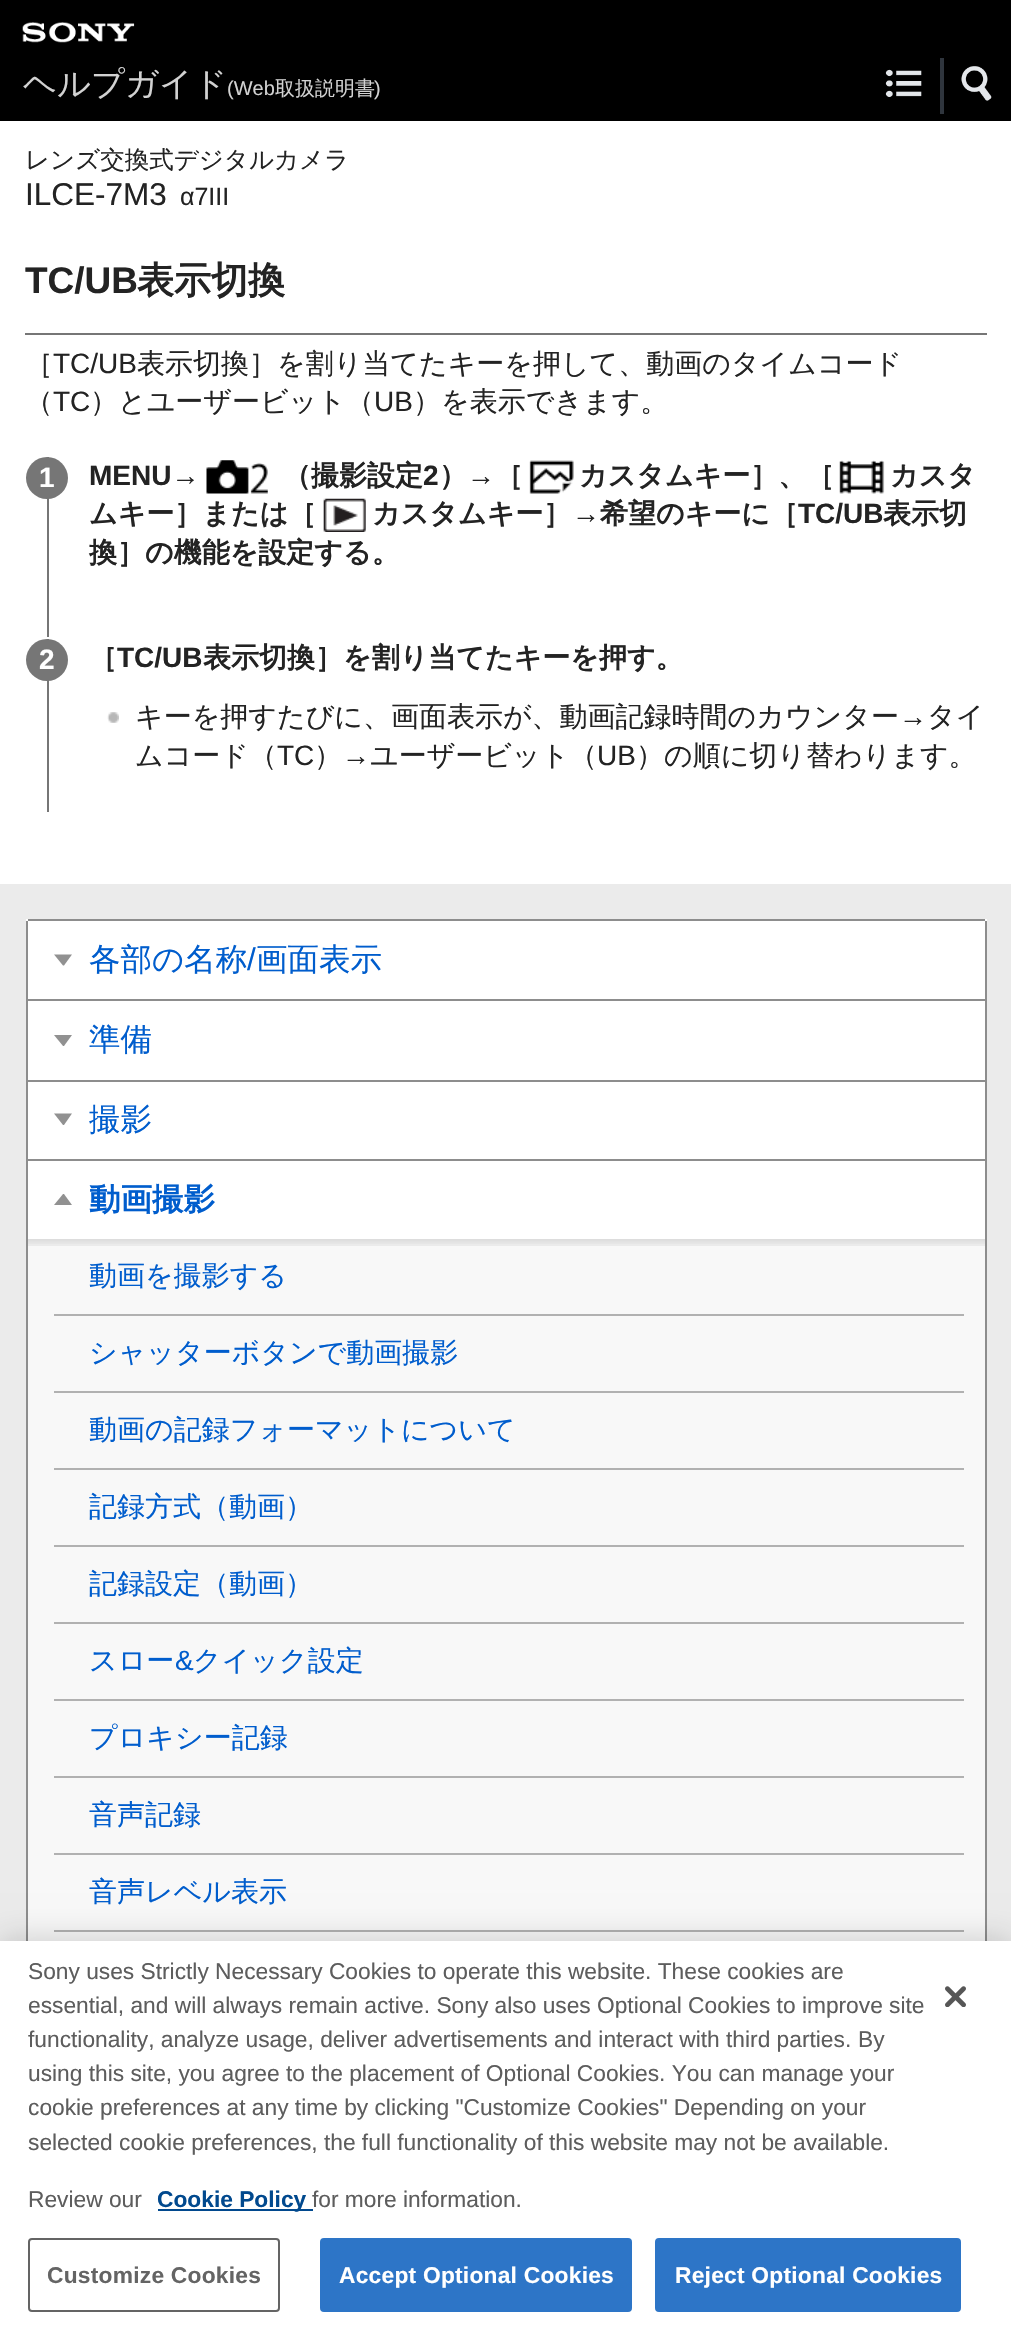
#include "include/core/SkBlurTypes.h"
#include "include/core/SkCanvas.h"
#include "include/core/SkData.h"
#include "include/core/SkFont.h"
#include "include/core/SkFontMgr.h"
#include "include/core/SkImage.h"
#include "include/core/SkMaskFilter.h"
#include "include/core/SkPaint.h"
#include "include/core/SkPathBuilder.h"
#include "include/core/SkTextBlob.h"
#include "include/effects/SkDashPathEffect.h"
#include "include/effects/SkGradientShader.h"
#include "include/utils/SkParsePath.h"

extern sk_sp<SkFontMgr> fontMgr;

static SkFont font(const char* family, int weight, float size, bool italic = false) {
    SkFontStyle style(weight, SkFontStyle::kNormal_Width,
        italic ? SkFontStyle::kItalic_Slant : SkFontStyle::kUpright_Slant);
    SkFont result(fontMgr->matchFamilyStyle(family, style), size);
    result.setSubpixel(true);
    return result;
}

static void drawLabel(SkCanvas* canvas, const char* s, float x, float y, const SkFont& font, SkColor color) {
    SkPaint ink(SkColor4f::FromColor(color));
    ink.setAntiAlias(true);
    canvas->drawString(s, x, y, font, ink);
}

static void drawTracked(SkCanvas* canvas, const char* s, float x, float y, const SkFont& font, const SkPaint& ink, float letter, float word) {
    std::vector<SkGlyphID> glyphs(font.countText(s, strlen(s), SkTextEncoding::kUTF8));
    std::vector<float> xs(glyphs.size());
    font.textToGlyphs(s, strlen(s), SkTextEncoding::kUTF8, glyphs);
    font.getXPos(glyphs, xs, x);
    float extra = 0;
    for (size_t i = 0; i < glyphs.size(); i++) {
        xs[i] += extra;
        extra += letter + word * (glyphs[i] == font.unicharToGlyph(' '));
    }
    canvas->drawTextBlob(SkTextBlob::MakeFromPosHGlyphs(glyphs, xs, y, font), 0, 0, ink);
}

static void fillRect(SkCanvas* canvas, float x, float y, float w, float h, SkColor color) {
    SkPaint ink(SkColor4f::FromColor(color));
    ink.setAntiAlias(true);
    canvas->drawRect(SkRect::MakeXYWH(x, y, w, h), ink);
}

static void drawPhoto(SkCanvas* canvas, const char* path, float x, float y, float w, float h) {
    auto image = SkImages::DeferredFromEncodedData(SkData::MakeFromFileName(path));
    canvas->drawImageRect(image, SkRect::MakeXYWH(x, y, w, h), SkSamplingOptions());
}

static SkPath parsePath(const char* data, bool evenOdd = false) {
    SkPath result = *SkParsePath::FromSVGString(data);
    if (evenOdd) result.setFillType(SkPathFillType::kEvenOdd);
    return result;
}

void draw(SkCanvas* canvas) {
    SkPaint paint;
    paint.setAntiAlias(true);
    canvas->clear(0xFFFFFFFF);
    fillRect(canvas, 0, 0, 1011, 121, 0xFF000000);
    drawPhoto(canvas, "assets/img1.png", 22, 22, 113, 21);
    SkFont font1 = font("WenQuanYi Zen Hei", 500, 33.25f);
    drawLabel(canvas, "ヘルプガイド", 23, 95, font1, 0xFFD2D2D2);
    SkFont font2 = font("Liberation Sans", 400, 20);
    drawLabel(canvas, "(Web", 227, 95, font2, 0xFFD2D2D2);
    SkFont font3 = font("WenQuanYi Zen Hei", 500, 20);
    drawLabel(canvas, "取扱説明書", 275, 95, font3, 0xFFD2D2D2);
    drawLabel(canvas, ")", 374, 95, font2, 0xFFD2D2D2);
    SkFont font4 = font("WenQuanYi Zen Hei", 500, 24.5f);
    drawLabel(canvas, "レンズ交換式デジタルカメラ", 25, 168, font4, 0xFF232323);
    SkFont font5 = font("Liberation Sans", 400, 31.5f);
    drawLabel(canvas, "ILCE-7M3", 25, 205, font5, 0xFF232323);
    SkFont font6 = font("Liberation Sans", 400, 25);
    drawLabel(canvas, "α7III", 180, 205, font6, 0xFF232323);
    fillRect(canvas, 940, 58, 4, 56, 0xFF2F353D);
    drawPhoto(canvas, "assets/img2.png", 885, 69, 37, 28);
    drawPhoto(canvas, "assets/img3.png", 961, 66, 31, 35);
    fillRect(canvas, 25, 333, 962, 2, 0xFF767676);
    SkFont font7 = font("Liberation Sans", 700, 37);
    drawLabel(canvas, "TC/UB", 25, 293, font7, 0xFF232323);
    SkFont font8 = font("WenQuanYi Zen Hei", 700, 37);
    drawLabel(canvas, "表示切換", 137, 293, font8, 0xFF232323);
    SkFont font9 = font("WenQuanYi Zen Hei", 500, 28);
    drawLabel(canvas, "［", 25, 373, font9, 0xFF232323);
    SkFont font10 = font("Liberation Sans", 400, 28);
    drawLabel(canvas, "TC/UB", 53, 373, font10, 0xFF232323);
    drawLabel(canvas, "表示切換］を割り当てたキーを押して、動画のタイムコード", 137, 373, font9, 0xFF232323);
    drawLabel(canvas, "（", 25, 411, font9, 0xFF232323);
    drawLabel(canvas, "TC", 53, 411, font10, 0xFF232323);
    drawLabel(canvas, "）とユーザービット（", 90, 411, font9, 0xFF232323);
    drawLabel(canvas, "UB", 374, 411, font10, 0xFF232323);
    drawLabel(canvas, "）を表示できます。", 413, 411, font9, 0xFF232323);
    fillRect(canvas, 47, 457, 2, 180, 0xFF767676);
    paint.setColor(0xFF767676);
    canvas->drawCircle(47, 478, 21, paint);
    SkFont font11 = font("Liberation Sans", 700, 28);
    drawLabel(canvas, "1", 39, 487, font11, 0xFFFFFFFF);
    drawLabel(canvas, "MENU→", 89, 485, font11, 0xFF232323);
    drawPhoto(canvas, "assets/img4.png", 206, 460, 62, 34);
    SkFont font12 = font("WenQuanYi Zen Hei", 700, 28);
    drawLabel(canvas, "（撮影設定", 283, 485, font12, 0xFF232323);
    drawLabel(canvas, "2", 423, 485, font11, 0xFF232323);
    drawLabel(canvas, "）", 439, 485, font12, 0xFF232323);
    drawLabel(canvas, "→", 467, 485, font11, 0xFF232323);
    drawLabel(canvas, "［", 495, 485, font12, 0xFF232323);
    drawPhoto(canvas, "assets/img5.png", 529, 460, 45, 34);
    drawLabel(canvas, "カスタムキー］、［", 579, 485, font12, 0xFF232323);
    drawPhoto(canvas, "assets/img6.png", 839, 460, 46, 34);
    drawLabel(canvas, "カスタ", 890, 485, font12, 0xFF232323);
    drawLabel(canvas, "ムキー］または［", 89, 523, font12, 0xFF232323);
    drawPhoto(canvas, "assets/img7.png", 323, 498, 43, 34);
    drawLabel(canvas, "カスタムキー］", 372, 523, font12, 0xFF232323);
    drawLabel(canvas, "→", 572, 523, font11, 0xFF232323);
    drawLabel(canvas, "希望のキーに［", 600, 523, font12, 0xFF232323);
    drawLabel(canvas, "TC/UB", 798, 523, font11, 0xFF232323);
    drawLabel(canvas, "表示切", 883, 523, font12, 0xFF232323);
    drawLabel(canvas, "換］の機能を設定する。", 89, 562, font12, 0xFF232323);
    fillRect(canvas, 47, 639, 2, 173, 0xFF767676);
    canvas->drawCircle(47, 660, 21, paint);
    drawLabel(canvas, "2", 39, 669, font11, 0xFFFFFFFF);
    drawLabel(canvas, "［", 89, 667, font12, 0xFF232323);
    drawLabel(canvas, "TC/UB", 117, 667, font11, 0xFF232323);
    drawLabel(canvas, "表示切換］を割り当てたキーを押す。", 203, 667, font12, 0xFF232323);
    drawPhoto(canvas, "assets/img8.png", 107, 712, 12, 11);
    drawLabel(canvas, "キーを押すたびに、画面表示が、動画記録時間のカウンター", 135, 726, font9, 0xFF232323);
    drawLabel(canvas, "→", 899, 726, font10, 0xFF232323);
    drawLabel(canvas, "タイ", 927, 726, font9, 0xFF232323);
    drawLabel(canvas, "ムコード（", 135, 765, font9, 0xFF232323);
    drawLabel(canvas, "TC", 277, 765, font10, 0xFF232323);
    drawLabel(canvas, "）", 314, 765, font9, 0xFF232323);
    drawLabel(canvas, "→", 342, 765, font10, 0xFF232323);
    drawLabel(canvas, "ユーザービット（", 370, 765, font9, 0xFF232323);
    drawLabel(canvas, "UB", 597, 765, font10, 0xFF232323);
    drawLabel(canvas, "）の順に切り替わります。", 636, 765, font9, 0xFF232323);
    fillRect(canvas, 0, 884, 1011, 1057, 0xFFEBEBEB);
    fillRect(canvas, 26, 919, 961, 320, 0xFFFFFFFF);
    fillRect(canvas, 28, 919, 957, 2, 0xFF8D8D8D);
    fillRect(canvas, 985, 921, 2, 78, 0xFF8D8D8D);
    fillRect(canvas, 26, 921, 2, 78, 0xFF8D8D8D);
    paint.setColor(0xFF919191);
    canvas->drawPath(parsePath("M54 954.5L63 965.5H64L72 954.5Z"), paint);
    SkFont font13 = font("WenQuanYi Zen Hei", 500, 31.5f);
    drawLabel(canvas, "各部の名称", 89, 970, font13, 0xFF005DCD);
    drawLabel(canvas, "/", 247, 970, font5, 0xFF005DCD);
    drawLabel(canvas, "画面表示", 256, 970, font13, 0xFF005DCD);
    fillRect(canvas, 26, 999, 961, 2, 0xFF8D8D8D);
    fillRect(canvas, 985, 999, 2, 81, 0xFF8D8D8D);
    fillRect(canvas, 26, 999, 2, 81, 0xFF8D8D8D);
    canvas->drawPath(parsePath("M54 1035L63 1046H64L72 1035Z"), paint);
    drawLabel(canvas, "準備", 89, 1050, font13, 0xFF005DCD);
    fillRect(canvas, 26, 1080, 961, 2, 0xFF8D8D8D);
    fillRect(canvas, 985, 1080, 2, 79, 0xFF8D8D8D);
    fillRect(canvas, 26, 1080, 2, 79, 0xFF8D8D8D);
    canvas->drawPath(parsePath("M54 1113.5L63 1125H64L72 1113.5Z"), paint);
    drawLabel(canvas, "撮影", 89, 1130, font13, 0xFF005DCD);
    fillRect(canvas, 26, 1159, 961, 2, 0xFF8D8D8D);
    fillRect(canvas, 985, 1159, 2, 782, 0xFF8D8D8D);
    fillRect(canvas, 26, 1159, 2, 782, 0xFF8D8D8D);
    canvas->drawPath(parsePath("M54 1205L63 1194H64L72 1205Z"), paint);
    SkFont font14 = font("WenQuanYi Zen Hei", 700, 31.5f);
    drawLabel(canvas, "動画撮影", 89, 1210, font14, 0xFF005DCD);
    fillRect(canvas, 28, 1246, 957, 695, 0xFFF8F8F8);
    {
        const SkColor colors[] = {0xFFDCDCDC, 0xFFECECEC};
        const float stops[] = {0, 1};
        const SkPoint ends[] = {{507, 1239}, {507, 1246}};
        paint.setShader(SkGradientShader::MakeLinear(ends, colors, stops, 2, SkTileMode::kClamp));
        paint.setAlpha(255);
    }
    canvas->drawRect(SkRect::MakeXYWH(28, 1239, 957, 5), paint);
    fillRect(canvas, 54, 1314, 910, 2, 0xFFB1B1B1);
    drawLabel(canvas, "動画を撮影する", 89, 1285, font9, 0xFF005DCD);
    fillRect(canvas, 54, 1391, 910, 2, 0xFFB1B1B1);
    drawLabel(canvas, "シャッターボタンで動画撮影", 89, 1362, font9, 0xFF005DCD);
    fillRect(canvas, 54, 1468, 910, 2, 0xFFB1B1B1);
    drawLabel(canvas, "動画の記録フォーマットについて", 89, 1439, font9, 0xFF005DCD);
    fillRect(canvas, 54, 1545, 910, 2, 0xFFB1B1B1);
    drawLabel(canvas, "記録方式（動画）", 89, 1516, font9, 0xFF005DCD);
    fillRect(canvas, 54, 1622, 910, 2, 0xFFB1B1B1);
    drawLabel(canvas, "記録設定（動画）", 89, 1593, font9, 0xFF005DCD);
    fillRect(canvas, 54, 1699, 910, 2, 0xFFB1B1B1);
    drawLabel(canvas, "スロー", 89, 1670, font9, 0xFF005DCD);
    drawLabel(canvas, "&", 175, 1670, font10, 0xFF005DCD);
    drawLabel(canvas, "クイック設定", 193, 1670, font9, 0xFF005DCD);
    fillRect(canvas, 54, 1776, 910, 2, 0xFFB1B1B1);
    drawLabel(canvas, "プロキシー記録", 89, 1747, font9, 0xFF005DCD);
    fillRect(canvas, 54, 1853, 910, 2, 0xFFB1B1B1);
    drawLabel(canvas, "音声記録", 89, 1824, font9, 0xFF005DCD);
    fillRect(canvas, 54, 1930, 910, 2, 0xFFB1B1B1);
    drawLabel(canvas, "音声レベル表示", 89, 1901, font9, 0xFF005DCD);
    paint.setShader(nullptr);
    paint.setColor(0x33000000);
    paint.setMaskFilter(SkMaskFilter::MakeBlur(kNormal_SkBlurStyle, 16));
    canvas->drawRect(SkRect::MakeXYWH(0, 1941, 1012, 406), paint);
    paint.setMaskFilter(nullptr);
    fillRect(canvas, 0, 1941, 1011, 405, 0xFFFFFFFF);
    SkFont font15 = font("Liberation Sans", 400, 22.75f);
    drawLabel(canvas, "Sony uses Strictly Necessary Cookies to operate this website. These cookies are", 28, 1979, font15, 0xFF5D5D5D);
    drawLabel(canvas, "essential, and will always remain active. Sony also uses Optional Cookies to improve site", 28, 2013, font15, 0xFF5D5D5D);
    drawLabel(canvas, "functionality, analyze usage, deliver advertisements and interact with third parties.", 28, 2047, font15, 0xFF5D5D5D);
    drawLabel(canvas, "By", 858, 2047, font15, 0xFF5D5D5D);
    drawLabel(canvas, "using this site, you agree to the placement of Optional Cookies. You can manage your", 28, 2081, font15, 0xFF5D5D5D);
    drawLabel(canvas, "cookie preferences at any time by clicking \"Customize Cookies\" Depending on your", 28, 2115, font15, 0xFF5D5D5D);
    drawLabel(canvas, "selected cookie preferences, the full functionality of this website may not be available.", 28, 2150, font15, 0xFF5D5D5D);
    drawLabel(canvas, "Review our", 28, 2207, font15, 0xFF5D5D5D);
    fillRect(canvas, 158, 2209, 155, 2, 0xFF01498E);
    SkFont font16 = font("Liberation Sans", 700, 22.75f);
    drawLabel(canvas, "Cookie Policy", 157, 2207, font16, 0xFF01498E);
    drawLabel(canvas, "for more information.", 312, 2207, font15, 0xFF5D5D5D);
    paint.setStroke(true);
    paint.setStrokeWidth(2);
    paint.setColor(0xFF646464);
    canvas->drawRoundRect(SkRect::MakeXYWH(29, 2239, 250, 72), 3, 3, paint);
    paint.setStroke(false);
    drawTracked(canvas, "Customize Cookies", 47, 2283, font16, paint, 0.25f, 0);
    paint.setColor(0xFF2D75C7);
    canvas->drawRoundRect(SkRect::MakeXYWH(321, 2239, 310, 72), 3, 3, paint);
    paint.setStroke(true);
    canvas->drawRoundRect(SkRect::MakeXYWH(321, 2239, 310, 72), 3, 3, paint);
    paint.setStroke(false);
    paint.setColor(0xFFFFFFFF);
    drawTracked(canvas, "Accept Optional Cookies", 339, 2283, font16, paint, 0.25f, 0);
    paint.setColor(0xFF2D75C7);
    canvas->drawRoundRect(SkRect::MakeXYWH(656, 2239, 304, 72), 3, 3, paint);
    paint.setStroke(true);
    canvas->drawRoundRect(SkRect::MakeXYWH(656, 2239, 304, 72), 3, 3, paint);
    paint.setStroke(false);
    paint.setColor(0xFFFFFFFF);
    drawTracked(canvas, "Reject Optional Cookies", 675, 2283, font16, paint, 0.25f, 0);
    drawPhoto(canvas, "assets/img9.png", 945, 1986, 21, 21);
}
